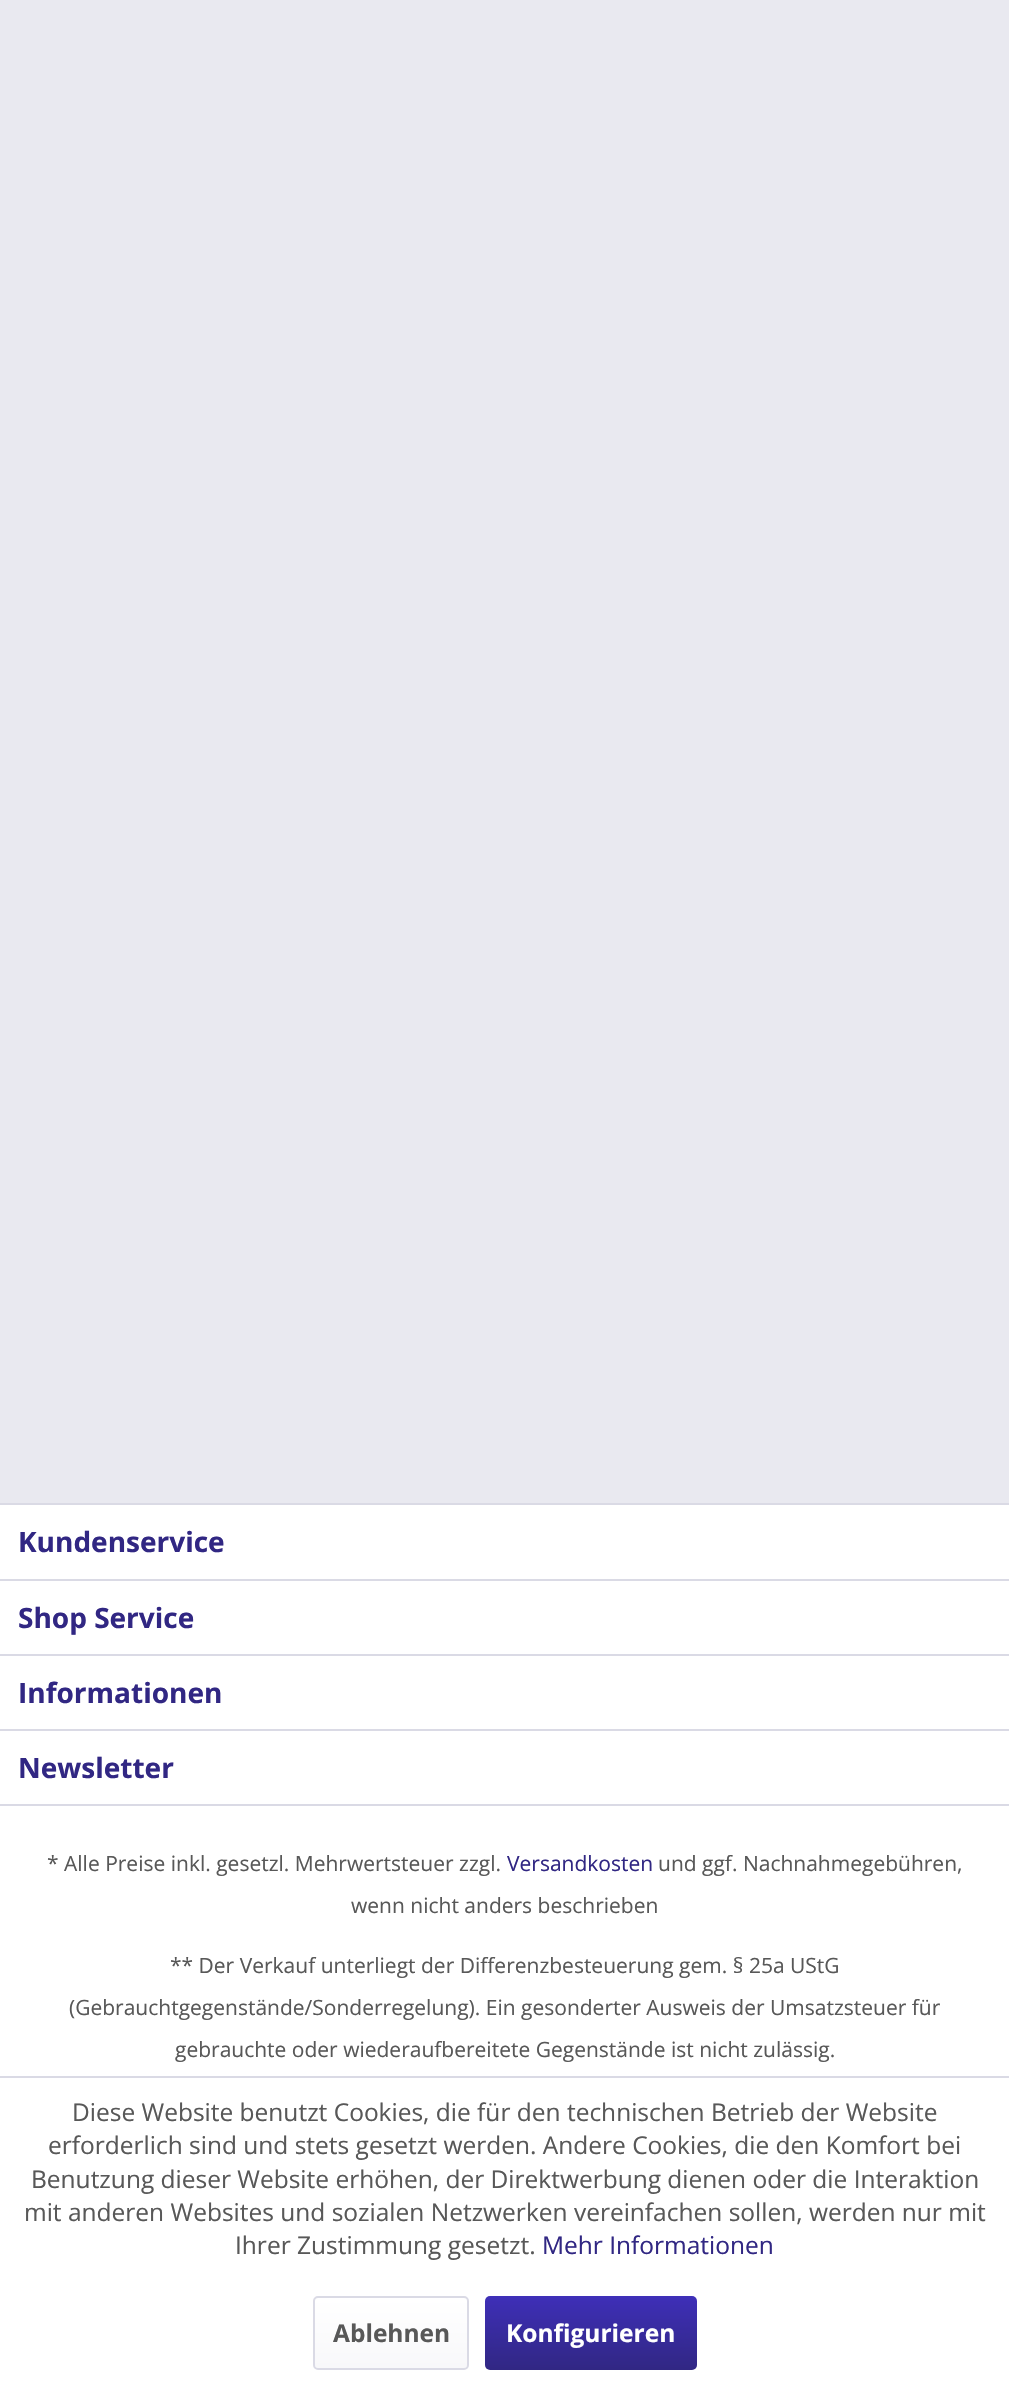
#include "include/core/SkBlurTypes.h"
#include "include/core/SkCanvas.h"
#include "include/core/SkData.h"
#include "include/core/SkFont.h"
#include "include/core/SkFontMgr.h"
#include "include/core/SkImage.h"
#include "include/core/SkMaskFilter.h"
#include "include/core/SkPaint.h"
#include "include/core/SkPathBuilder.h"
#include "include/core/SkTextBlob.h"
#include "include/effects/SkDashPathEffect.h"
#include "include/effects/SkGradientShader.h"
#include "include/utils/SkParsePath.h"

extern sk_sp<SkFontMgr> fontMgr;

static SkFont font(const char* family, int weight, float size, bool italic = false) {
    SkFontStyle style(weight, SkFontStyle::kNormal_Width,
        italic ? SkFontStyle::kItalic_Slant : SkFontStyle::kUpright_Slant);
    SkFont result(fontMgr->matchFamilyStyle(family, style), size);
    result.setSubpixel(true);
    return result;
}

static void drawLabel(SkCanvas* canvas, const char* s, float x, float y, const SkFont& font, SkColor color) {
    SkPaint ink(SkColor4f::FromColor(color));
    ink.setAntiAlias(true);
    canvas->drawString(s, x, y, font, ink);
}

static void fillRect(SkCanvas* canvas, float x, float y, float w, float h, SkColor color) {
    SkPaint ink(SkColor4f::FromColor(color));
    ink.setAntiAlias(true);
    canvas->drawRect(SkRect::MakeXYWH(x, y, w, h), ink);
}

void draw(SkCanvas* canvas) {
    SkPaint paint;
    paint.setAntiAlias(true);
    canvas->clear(0xFFE9E9F0);
    fillRect(canvas, 0, 1505, 1009, 571, 0xFFFFFFFF);
    fillRect(canvas, 0, 1503, 1009, 2, 0xFFDADAE5);
    SkFont font1 = font("Open Sans", 700, 28);
    drawLabel(canvas, "Kundenservice", 18, 1552, font1, 0xFF312783);
    fillRect(canvas, 0, 1579, 1009, 2, 0xFFDADAE5);
    drawLabel(canvas, "Shop Service", 18, 1628, font1, 0xFF312783);
    fillRect(canvas, 0, 1654, 1009, 2, 0xFFDADAE5);
    drawLabel(canvas, "Informationen", 18, 1703, font1, 0xFF312783);
    fillRect(canvas, 0, 1729, 1009, 2, 0xFFDADAE5);
    fillRect(canvas, 0, 1804, 1009, 2, 0xFFDADAE5);
    drawLabel(canvas, "Newsletter", 18, 1778, font1, 0xFF312783);
    SkFont font2 = font("Open Sans", 400, 21);
    drawLabel(canvas, "* Alle Preise inkl. gesetzl. Mehrwertsteuer zzgl.", 47, 1871, font2, 0xFF585858);
    drawLabel(canvas, "Versandkosten", 507, 1871, font2, 0xFF312783);
    drawLabel(canvas, "und ggf. Nachnahmegebühren,", 658, 1871, font2, 0xFF585858);
    drawLabel(canvas, "wenn nicht anders beschrieben", 351, 1913, font2, 0xFF585858);
    drawLabel(canvas, "** Der Verkauf unterliegt der Differenzbesteuerung gem. § 25a UStG", 170, 1973, font2, 0xFF585858);
    drawLabel(canvas, "(Gebrauchtgegenstände/Sonderregelung). Ein gesonderter Ausweis der Umsatzsteuer für", 69, 2015, font2, 0xFF585858);
    drawLabel(canvas, "gebrauchte oder wiederaufbereitete Gegenstände ist nicht zulässig.", 175, 2057, font2, 0xFF585858);
    fillRect(canvas, 0, 2078, 1009, 308, 0xFFFFFFFF);
    fillRect(canvas, 0, 2076, 1009, 2, 0xFFDADAE5);
    SkFont font3 = font("Open Sans", 400, 24.5f);
    drawLabel(canvas, "Diese Website benutzt Cookies, die für den technischen Betrieb der Website", 72, 2121, font3, 0xFF585858);
    drawLabel(canvas, "erforderlich sind und stets gesetzt werden. Andere Cookies, die den Komfort bei", 48, 2154, font3, 0xFF585858);
    drawLabel(canvas, "Benutzung dieser Website erhöhen, der Direktwerbung dienen oder die Interaktion", 31, 2188, font3, 0xFF585858);
    drawLabel(canvas, "mit anderen Websites und sozialen Netzwerken vereinfachen sollen, werden nur mit", 24, 2221, font3, 0xFF585858);
    drawLabel(canvas, "Ihrer Zustimmung gesetzt.", 235, 2254, font3, 0xFF585858);
    drawLabel(canvas, "Mehr Informationen", 542, 2254, font3, 0xFF312783);
    {
        const SkColor colors[] = {0xFFFFFFFF, 0xFFF8F8FA};
        const float stops[] = {0, 1};
        const SkPoint ends[] = {{391, 2298}, {391, 2368}};
        paint.setShader(SkGradientShader::MakeLinear(ends, colors, stops, 2, SkTileMode::kClamp));
        paint.setAlpha(255);
    }
    canvas->drawRoundRect(SkRect::MakeXYWH(315, 2298, 152, 70), 4, 4, paint);
    paint.setStroke(true);
    paint.setStrokeWidth(2);
    paint.setShader(nullptr);
    paint.setColor(0xFFDADAE5);
    canvas->drawRoundRect(SkRect::MakeXYWH(314, 2297, 154, 72), 4, 4, paint);
    SkFont font4 = font("Open Sans", 700, 24.5f);
    drawLabel(canvas, "Ablehnen", 333, 2342, font4, 0xFF585858);
    paint.setStroke(false);
    {
        const SkColor colors[] = {0xFF3E2FB8, 0xFF312783};
        const float stops[] = {0, 1};
        const SkPoint ends[] = {{591, 2296}, {591, 2370}};
        paint.setShader(SkGradientShader::MakeLinear(ends, colors, stops, 2, SkTileMode::kClamp));
        paint.setAlpha(255);
    }
    canvas->drawRoundRect(SkRect::MakeXYWH(485, 2296, 212, 74), 5, 5, paint);
    drawLabel(canvas, "Konfigurieren", 506, 2342, font4, 0xFFFFFFFF);
}
